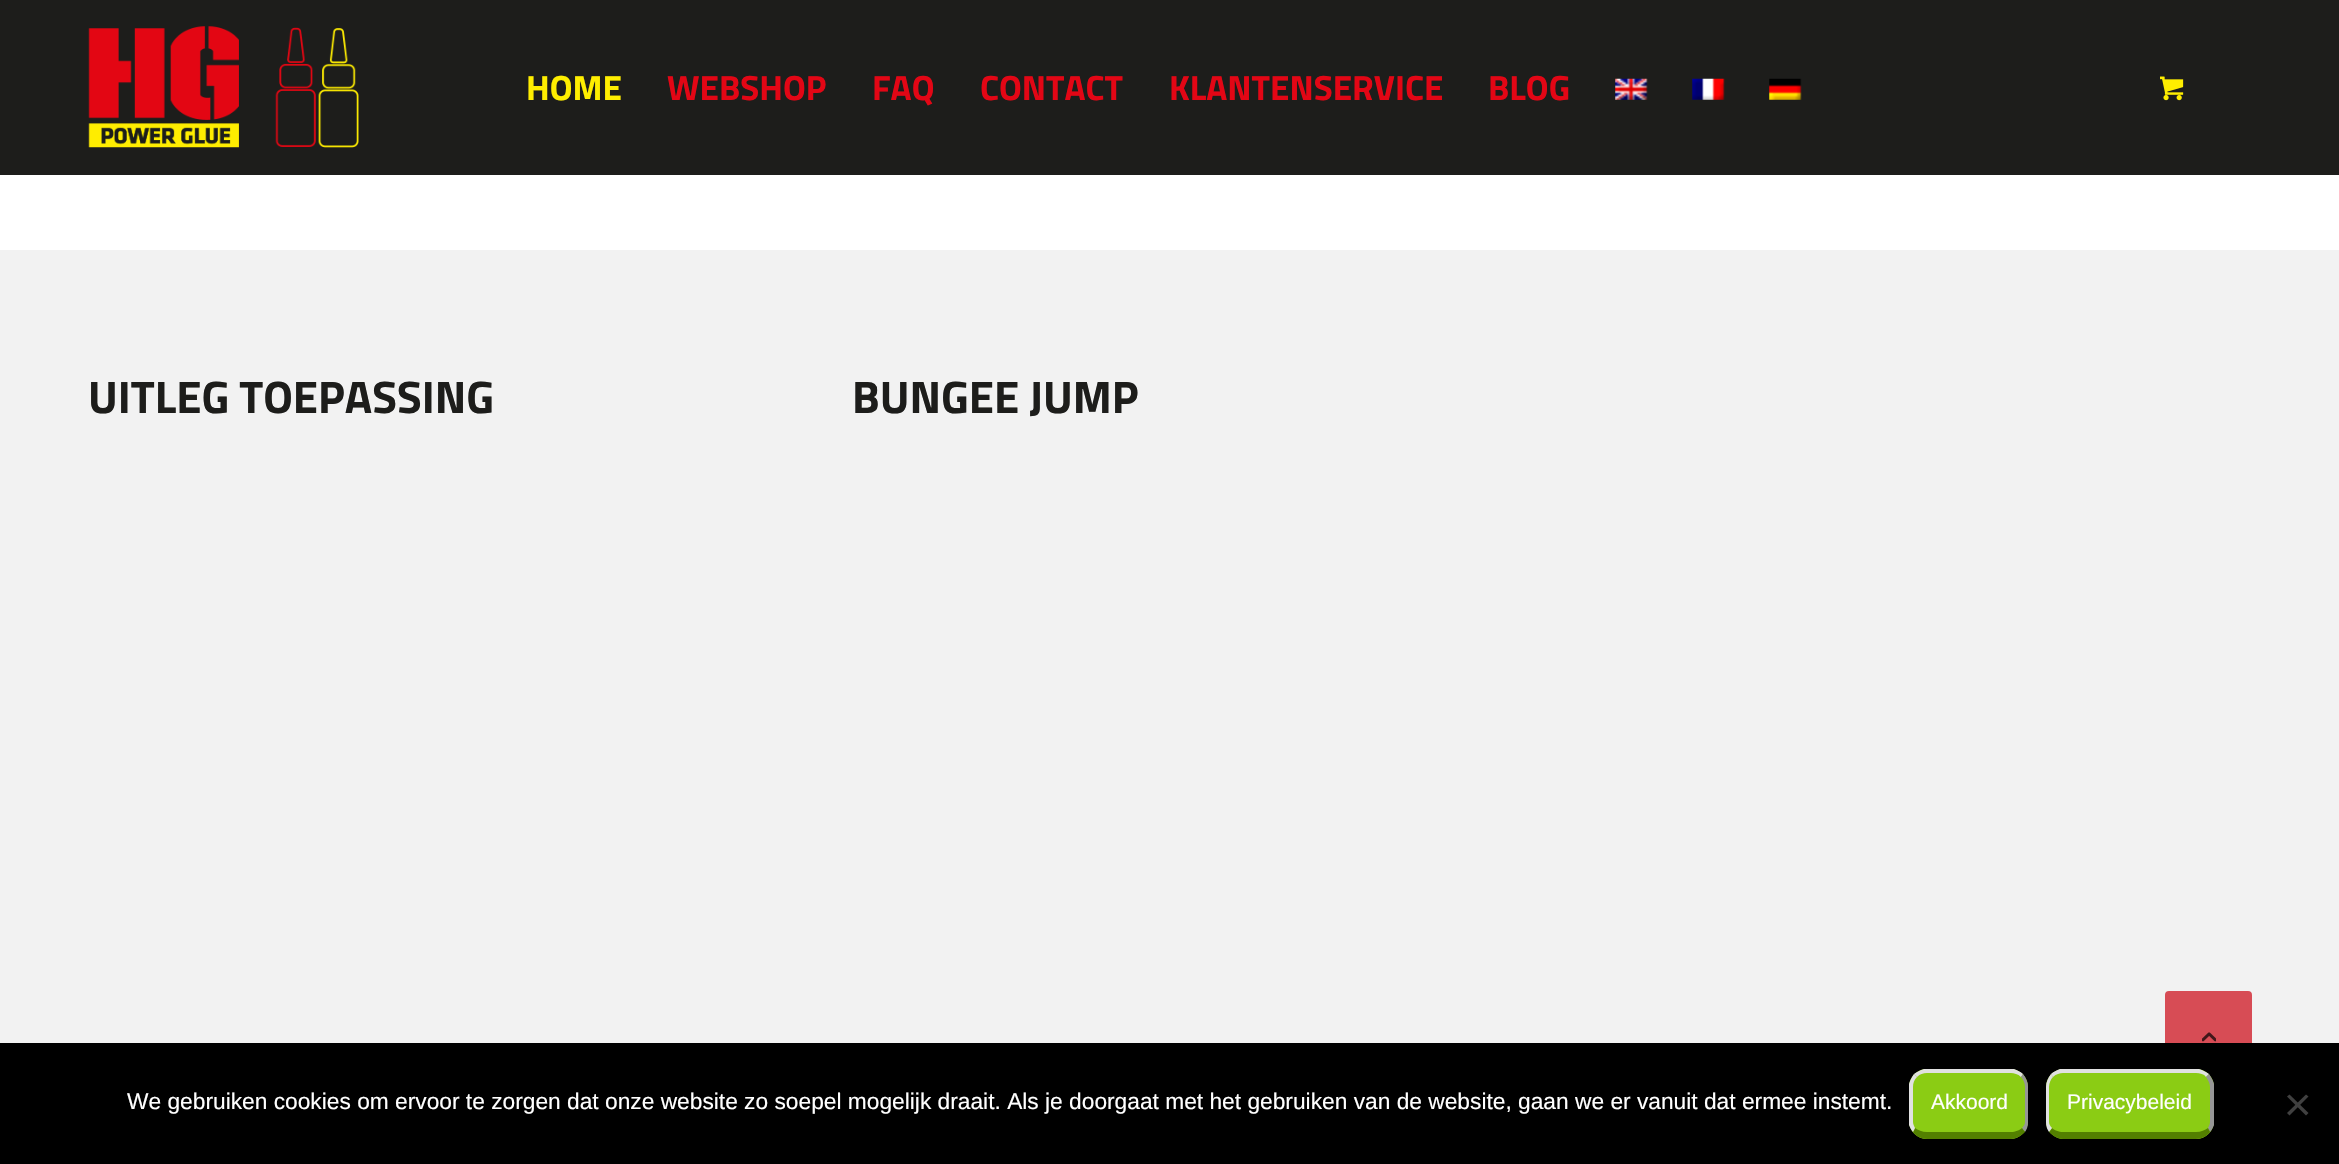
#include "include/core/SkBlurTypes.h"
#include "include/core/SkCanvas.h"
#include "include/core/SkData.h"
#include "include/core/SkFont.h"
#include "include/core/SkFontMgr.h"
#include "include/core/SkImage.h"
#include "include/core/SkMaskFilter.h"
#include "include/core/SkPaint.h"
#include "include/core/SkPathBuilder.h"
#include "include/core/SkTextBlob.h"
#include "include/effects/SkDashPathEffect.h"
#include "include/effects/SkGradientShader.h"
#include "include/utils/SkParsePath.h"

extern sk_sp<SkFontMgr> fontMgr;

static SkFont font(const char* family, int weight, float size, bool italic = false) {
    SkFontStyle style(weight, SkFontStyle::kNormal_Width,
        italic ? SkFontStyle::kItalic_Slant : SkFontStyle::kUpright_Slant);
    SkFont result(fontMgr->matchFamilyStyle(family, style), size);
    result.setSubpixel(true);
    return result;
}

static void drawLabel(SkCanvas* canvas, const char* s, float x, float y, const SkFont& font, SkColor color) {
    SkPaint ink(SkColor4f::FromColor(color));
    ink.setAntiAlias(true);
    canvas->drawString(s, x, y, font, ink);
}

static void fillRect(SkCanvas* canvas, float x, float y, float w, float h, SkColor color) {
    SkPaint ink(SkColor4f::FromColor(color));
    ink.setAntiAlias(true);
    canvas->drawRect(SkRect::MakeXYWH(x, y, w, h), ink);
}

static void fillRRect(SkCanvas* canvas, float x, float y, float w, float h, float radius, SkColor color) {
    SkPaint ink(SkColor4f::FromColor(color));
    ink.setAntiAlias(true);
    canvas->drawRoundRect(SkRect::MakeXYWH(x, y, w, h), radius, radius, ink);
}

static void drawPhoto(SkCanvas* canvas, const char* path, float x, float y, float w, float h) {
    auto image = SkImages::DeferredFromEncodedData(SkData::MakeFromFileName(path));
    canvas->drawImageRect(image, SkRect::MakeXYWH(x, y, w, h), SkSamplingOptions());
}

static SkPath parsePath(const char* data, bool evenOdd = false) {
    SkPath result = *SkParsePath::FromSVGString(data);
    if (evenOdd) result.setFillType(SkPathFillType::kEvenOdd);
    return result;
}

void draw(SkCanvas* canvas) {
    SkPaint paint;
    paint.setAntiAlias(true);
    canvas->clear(0xFFFFFFFF);
    fillRect(canvas, 0, 0, 2339, 175, 0xFF1D1D1B);
    drawPhoto(canvas, "assets/img1.png", 88, 26, 271, 122);
    SkFont font1 = font("Titillium Web", 700, 35);
    drawLabel(canvas, "HOME", 526, 100, font1, 0xFFFFEE00);
    drawLabel(canvas, "WEBSHOP", 667, 100, font1, 0xFFE30615);
    drawLabel(canvas, "FAQ", 872, 100, font1, 0xFFE30615);
    drawLabel(canvas, "CONTACT", 980, 100, font1, 0xFFE30615);
    drawLabel(canvas, "KLANTENSERVICE", 1169, 100, font1, 0xFFE30615);
    drawLabel(canvas, "BLOG", 1488, 100, font1, 0xFFE30615);
    drawPhoto(canvas, "assets/img2.png", 1615, 78, 33, 22);
    drawPhoto(canvas, "assets/img3.png", 1692, 78, 33, 22);
    drawPhoto(canvas, "assets/img4.png", 1769, 78, 33, 22);
    drawPhoto(canvas, "assets/img5.png", 2160, 76, 24, 25);
    fillRect(canvas, 0, 250, 2339, 793, 0xFFF2F2F2);
    SkFont font2 = font("Titillium Web", 700, 45.5f);
    drawLabel(canvas, "UITLEG TOEPASSING", 88, 413, font2, 0xFF1D1D1B);
    drawLabel(canvas, "BUNGEE JUMP", 852, 413, font2, 0xFF1D1D1B);
    paint.setColor(0xFFD74C55);
    canvas->drawRoundRect(SkRect::MakeXYWH(2166, 992, 85, 85), 3, 3, paint);
    paint.setStroke(true);
    paint.setStrokeWidth(2);
    canvas->drawRoundRect(SkRect::MakeXYWH(2166, 992, 85, 85), 3, 3, paint);
    drawPhoto(canvas, "assets/img6.png", 2202, 1032, 14, 10);
    fillRect(canvas, 0, 1043, 2339, 121, 0xFF000000);
    SkFont font3 = font("Liberation Sans", 400, 22.75f);
    drawLabel(canvas, "We gebruiken cookies om ervoor te zorgen dat onze website zo soepel mogelijk draait. Als je doorgaat met het gebruiken van de website, gaan we er vanuit dat ermee instemt.", 127, 1109, font3, 0xFFFFFFFF);
    fillRRect(canvas, 1909, 1069, 119, 70, 18, 0xFF8BCC14);
    paint.setStroke(false);
    paint.setColor(0xFFE1E1E1);
    canvas->drawPath(parsePath("M1927 1073C1923 1073 1920 1074 1917 1077L1914 1074C1917 1072 1920 1070 1924 1069H2014C2017 1070 2021 1072 2023 1074L2021 1077C2018 1074 2014 1073 2011 1073Z"), paint);
    paint.setColor(0xFF969696);
    canvas->drawPath(parsePath("M2023 1074C2026 1078 2028 1082 2028 1087V1122C2028 1126 2027 1129 2025 1132L2022 1128C2024 1126 2025 1124 2025 1122V1087C2025 1083 2023 1079 2021 1077Z"), paint);
    paint.setColor(0xFF538000);
    canvas->drawPath(parsePath("M2025 1132C2021 1136 2016 1139 2011 1139H1927C1921 1139 1916 1136 1913 1132L1915 1128C1918 1130 1922 1132 1927 1132H2011C2015 1132 2020 1130 2022 1128Z"), paint);
    paint.setColor(0xFFE1E1E1);
    canvas->drawPath(parsePath("M1909 1084C1910 1080 1912 1077 1914 1074L1917 1077C1914 1080 1913 1083 1913 1087V1122C1913 1124 1914 1126 1915 1128L1913 1132C1911 1130 1910 1127 1909 1125Z"), paint);
    SkFont font4 = font("Liberation Sans", 400, 21);
    drawLabel(canvas, "Akkoord", 1931, 1109, font4, 0xFFFFFFFF);
    fillRRect(canvas, 2046, 1069, 168, 70, 18, 0xFF8BCC14);
    canvas->drawPath(parsePath("M2063 1073C2060 1073 2056 1074 2053 1077L2051 1074C2053 1072 2057 1070 2060 1069H2199C2203 1070 2206 1072 2209 1074L2206 1077C2204 1074 2200 1073 2196 1073Z"), paint);
    paint.setColor(0xFF969696);
    canvas->drawPath(parsePath("M2214 1125C2213 1127 2212 1130 2210 1132L2208 1128C2209 1126 2210 1124 2210 1122V1087C2210 1083 2208 1080 2206 1077L2209 1074C2211 1077 2213 1080 2214 1084Z"), paint);
    paint.setColor(0xFF538000);
    canvas->drawPath(parsePath("M2210 1132C2207 1136 2202 1139 2196 1139H2063C2058 1139 2053 1136 2049 1132L2052 1128C2054 1130 2059 1132 2063 1132H2196C2201 1132 2205 1130 2208 1128Z"), paint);
    paint.setColor(0xFFE1E1E1);
    canvas->drawPath(parsePath("M2049 1132C2047 1129 2046 1126 2046 1122V1087C2046 1082 2048 1078 2051 1074L2053 1077C2051 1079 2049 1083 2049 1087V1122C2049 1124 2050 1126 2052 1128Z"), paint);
    drawLabel(canvas, "Privacybeleid", 2067, 1109, font4, 0xFFFFFFFF);
    paint.setColor(0xFF404040);
    canvas->drawPath(parsePath("M2306 1094.5L2308.5 1096.5L2289.5 1115.5L2287 1113Z"), paint);
    canvas->drawPath(parsePath("M2287 1096.5L2289.5 1094.5L2308.5 1113L2306 1115.5Z"), paint);
}
